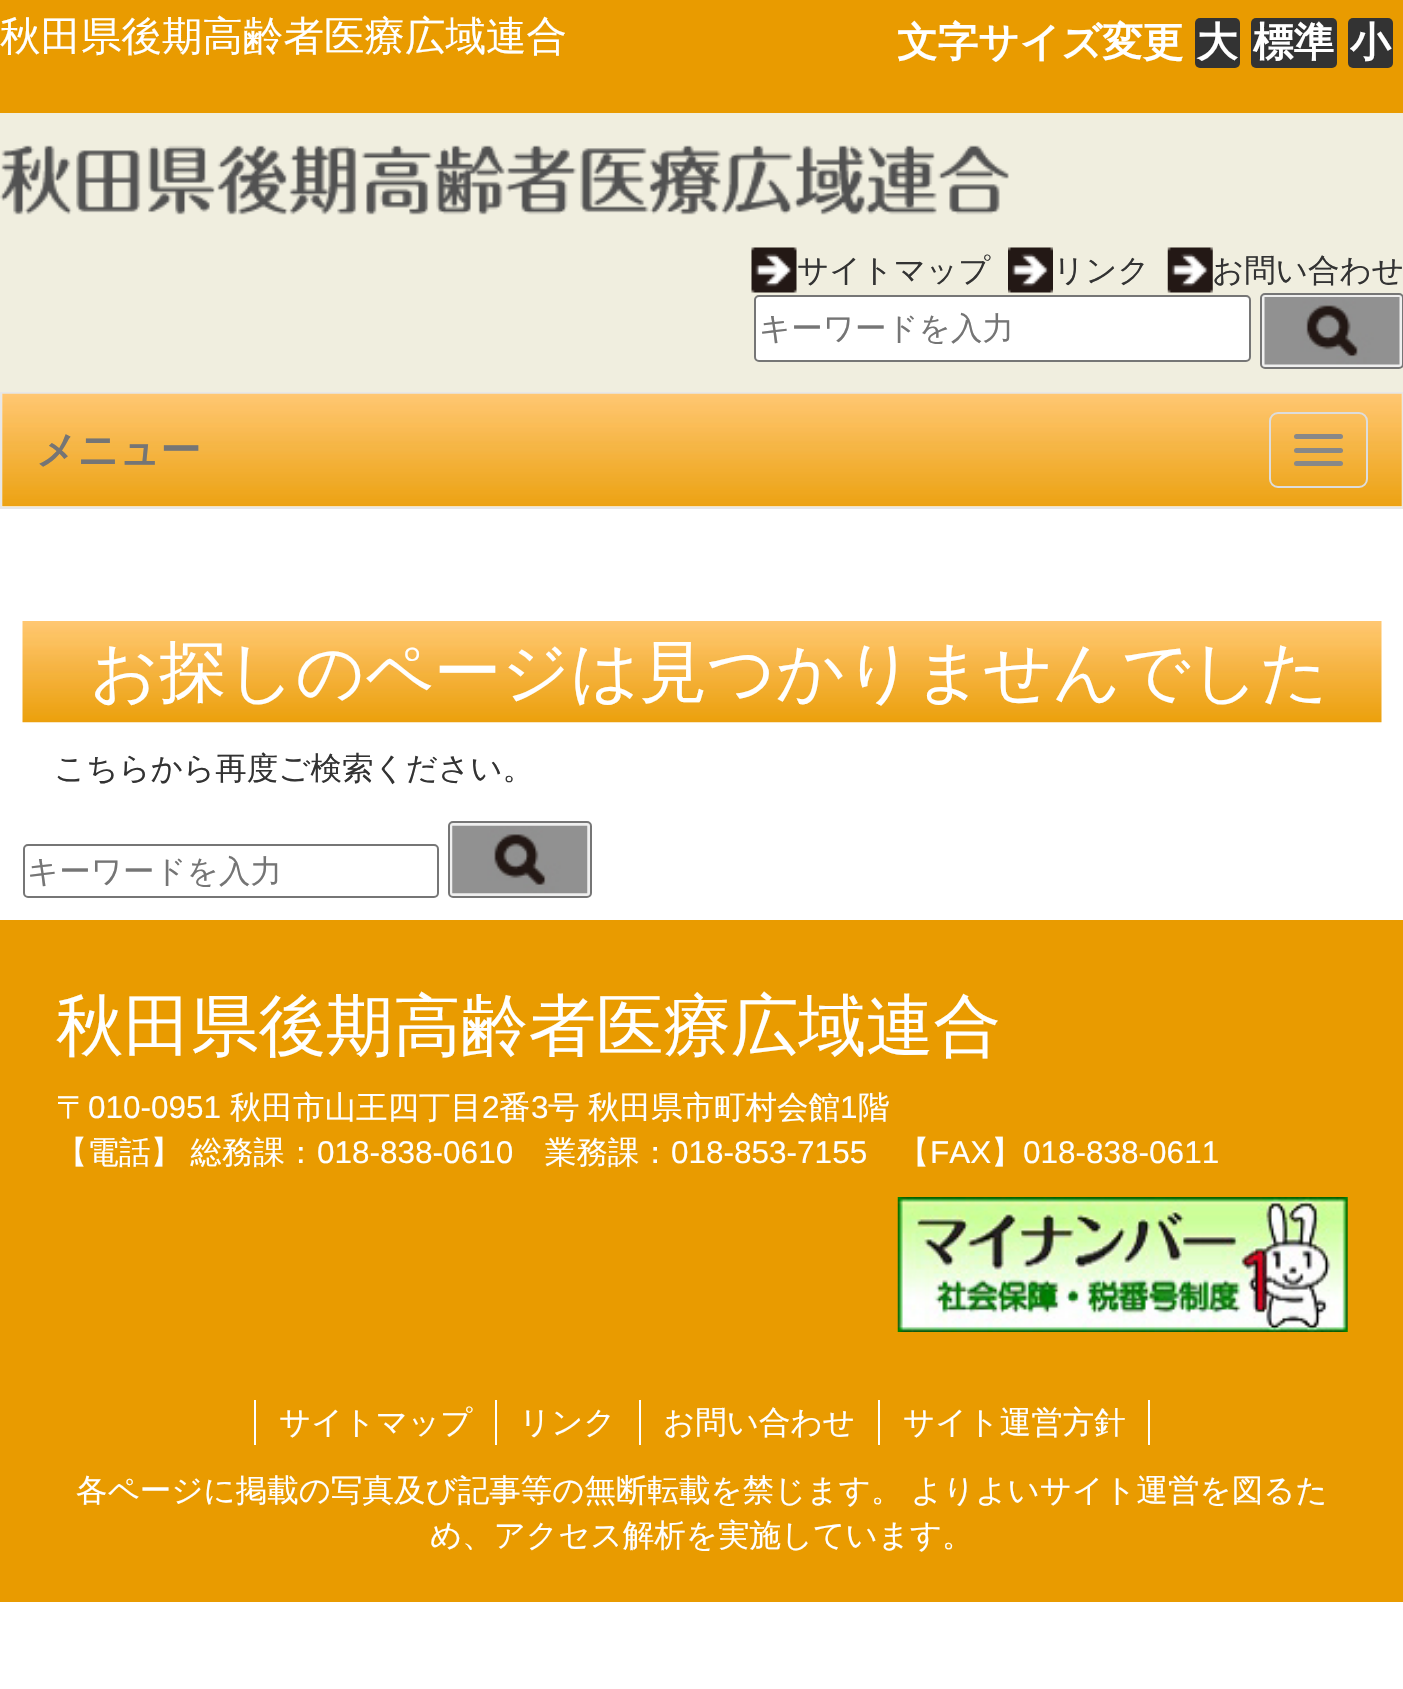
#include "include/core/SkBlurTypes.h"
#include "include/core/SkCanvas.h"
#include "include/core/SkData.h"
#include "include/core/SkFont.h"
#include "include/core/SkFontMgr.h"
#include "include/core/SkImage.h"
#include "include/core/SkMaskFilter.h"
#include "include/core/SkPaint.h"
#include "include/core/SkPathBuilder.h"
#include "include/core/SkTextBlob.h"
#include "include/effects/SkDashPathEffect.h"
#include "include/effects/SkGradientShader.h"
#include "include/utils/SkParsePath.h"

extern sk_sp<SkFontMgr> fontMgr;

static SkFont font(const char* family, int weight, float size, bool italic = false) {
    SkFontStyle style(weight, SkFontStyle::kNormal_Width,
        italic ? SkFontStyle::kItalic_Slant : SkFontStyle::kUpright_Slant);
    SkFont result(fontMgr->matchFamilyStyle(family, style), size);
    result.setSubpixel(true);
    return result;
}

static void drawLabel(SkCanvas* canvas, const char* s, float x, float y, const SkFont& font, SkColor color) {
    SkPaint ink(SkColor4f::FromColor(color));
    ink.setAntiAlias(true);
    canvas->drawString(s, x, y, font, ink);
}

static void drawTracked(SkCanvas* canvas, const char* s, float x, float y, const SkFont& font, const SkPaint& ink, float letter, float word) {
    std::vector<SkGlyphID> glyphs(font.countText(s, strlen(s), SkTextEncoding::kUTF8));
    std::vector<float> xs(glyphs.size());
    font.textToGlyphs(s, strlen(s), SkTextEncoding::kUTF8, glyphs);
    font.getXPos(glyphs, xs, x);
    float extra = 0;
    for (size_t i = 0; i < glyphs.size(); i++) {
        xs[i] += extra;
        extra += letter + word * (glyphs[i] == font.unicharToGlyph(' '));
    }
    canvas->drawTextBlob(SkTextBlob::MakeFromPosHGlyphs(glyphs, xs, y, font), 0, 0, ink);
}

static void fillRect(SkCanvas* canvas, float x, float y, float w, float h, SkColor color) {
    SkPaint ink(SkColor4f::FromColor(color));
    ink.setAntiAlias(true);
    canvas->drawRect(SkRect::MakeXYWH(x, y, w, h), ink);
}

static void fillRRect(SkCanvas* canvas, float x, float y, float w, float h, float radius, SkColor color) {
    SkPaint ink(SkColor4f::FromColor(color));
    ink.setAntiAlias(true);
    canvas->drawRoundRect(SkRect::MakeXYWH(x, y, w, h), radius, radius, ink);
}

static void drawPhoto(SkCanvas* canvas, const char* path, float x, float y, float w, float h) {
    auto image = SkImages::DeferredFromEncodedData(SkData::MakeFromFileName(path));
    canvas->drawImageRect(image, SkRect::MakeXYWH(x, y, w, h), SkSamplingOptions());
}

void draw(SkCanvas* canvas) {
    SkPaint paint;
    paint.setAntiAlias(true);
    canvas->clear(0xFFFFFFFF);
    fillRect(canvas, 0, 0, 1403, 113, 0xFFE99B00);
    SkFont font1 = font("WenQuanYi Zen Hei", 500, 40.5f);
    drawLabel(canvas, "秋田県後期高齢者医療広域連合", 0, 50, font1, 0xFFFFFFFF);
    SkFont font2 = font("WenQuanYi Zen Hei", 700, 40.5f);
    drawLabel(canvas, "文字サイズ変更", 897, 56, font2, 0xFFFFFFFF);
    fillRRect(canvas, 1195, 18, 45, 50, 5, 0xFF333333);
    drawLabel(canvas, "大", 1197, 56, font2, 0xFFFFFFFF);
    fillRRect(canvas, 1251, 18, 86, 50, 5, 0xFF333333);
    drawLabel(canvas, "標準", 1253, 56, font2, 0xFFFFFFFF);
    fillRRect(canvas, 1348, 18, 45, 50, 5, 0xFF333333);
    drawLabel(canvas, "小", 1350, 56, font2, 0xFFFFFFFF);
    fillRect(canvas, 0, 113, 1403, 279, 0xFFF0EEDF);
    drawPhoto(canvas, "assets/img1.png", 0, 145, 1009, 70);
    drawPhoto(canvas, "assets/img2.png", 751, 247, 46, 46);
    SkFont font3 = font("WenQuanYi Zen Hei", 500, 31.5f);
    drawLabel(canvas, "サイトマップ", 797, 281, font3, 0xFF333333);
    drawPhoto(canvas, "assets/img3.png", 1008, 247, 45, 46);
    drawLabel(canvas, "リンク", 1053, 281, font3, 0xFF333333);
    drawPhoto(canvas, "assets/img4.png", 1167, 247, 46, 46);
    drawLabel(canvas, "お問い合わせ", 1212, 281, font3, 0xFF333333);
    paint.setColor(0xFFFFFFFF);
    canvas->drawRoundRect(SkRect::MakeXYWH(755, 296, 495, 65), 4, 4, paint);
    paint.setStroke(true);
    paint.setStrokeWidth(2);
    paint.setColor(0xFF767676);
    canvas->drawRoundRect(SkRect::MakeXYWH(755, 296, 495, 65), 4, 4, paint);
    drawLabel(canvas, "キーワードを入力", 759, 339, font3, 0xFF757575);
    paint.setStroke(false);
    paint.setColor(0xFFEFEFEF);
    canvas->drawRoundRect(SkRect::MakeXYWH(1261, 294, 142, 74), 4, 4, paint);
    paint.setStroke(true);
    paint.setColor(0xFF767676);
    canvas->drawRoundRect(SkRect::MakeXYWH(1261, 294, 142, 74), 4, 4, paint);
    drawPhoto(canvas, "assets/img5.png", 1264, 297, 136, 68);
    paint.setStroke(false);
    paint.setColor(0xFFF8F8F8);
    canvas->drawRect(SkRect::MakeXYWH(1, 393, 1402, 115), paint);
    paint.setStroke(true);
    paint.setColor(0xFFE7E7E7);
    canvas->drawRect(SkRect::MakeXYWH(1, 393, 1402, 115), paint);
    drawPhoto(canvas, "assets/img6.png", 2, 393, 1400, 114);
    drawLabel(canvas, "メニュー", 36, 464, font2, 0xFF757575);
    paint.setColor(0xFFDDDDDD);
    canvas->drawRoundRect(SkRect::MakeXYWH(1270, 413, 97, 74), 8, 8, paint);
    fillRRect(canvas, 1294, 434, 49, 5, 2.5f, 0xFF888888);
    fillRRect(canvas, 1294, 448, 49, 5, 2.5f, 0xFF888888);
    fillRRect(canvas, 1294, 461, 49, 5, 2.5f, 0xFF888888);
    drawPhoto(canvas, "assets/img7.png", 22, 621, 1360, 102);
    SkFont font4 = font("WenQuanYi Zen Hei", 500, 67.5f);
    drawLabel(canvas, "お探しのページは見つかりませんでした", 90, 695, font4, 0xFFFFFFFF);
    drawLabel(canvas, "こちらから再度ご検索ください。", 54, 779, font3, 0xFF333333);
    paint.setColor(0xFF767676);
    canvas->drawRoundRect(SkRect::MakeXYWH(24, 845, 414, 52), 4, 4, paint);
    drawLabel(canvas, "キーワードを入力", 27, 882, font3, 0xFF757575);
    paint.setStroke(false);
    paint.setColor(0xFFEFEFEF);
    canvas->drawRoundRect(SkRect::MakeXYWH(449, 822, 142, 75), 4, 4, paint);
    paint.setStroke(true);
    paint.setColor(0xFF767676);
    canvas->drawRoundRect(SkRect::MakeXYWH(449, 822, 142, 75), 4, 4, paint);
    drawPhoto(canvas, "assets/img8.png", 452, 825, 136, 69);
    fillRect(canvas, 0, 920, 1403, 682, 0xFFE99B00);
    drawLabel(canvas, "秋田県後期高齢者医療広域連合", 56, 1049, font4, 0xFFFFFFFF);
    drawLabel(canvas, "〒", 56, 1118, font3, 0xFFFFFFFF);
    SkFont font5 = font("Liberation Sans", 400, 31.5f);
    drawLabel(canvas, "010-0951", 88, 1118, font5, 0xFFFFFFFF);
    drawLabel(canvas, "秋田市山王四丁目", 230, 1118, font3, 0xFFFFFFFF);
    drawLabel(canvas, "2", 482, 1118, font5, 0xFFFFFFFF);
    drawLabel(canvas, "番", 499, 1118, font3, 0xFFFFFFFF);
    drawLabel(canvas, "3", 531, 1118, font5, 0xFFFFFFFF);
    drawLabel(canvas, "号", 548, 1118, font3, 0xFFFFFFFF);
    drawLabel(canvas, "秋田県市町村会館", 588, 1118, font3, 0xFFFFFFFF);
    drawLabel(canvas, "1", 840, 1118, font5, 0xFFFFFFFF);
    drawLabel(canvas, "階", 858, 1118, font3, 0xFFFFFFFF);
    paint.setStroke(false);
    paint.setColor(0xFFFFFFFF);
    drawTracked(canvas, "【電話】 総務課：", 56, 1163, font3, paint, 0, -1);
    drawLabel(canvas, "018-838-0610", 317, 1163, font5, 0xFFFFFFFF);
    drawLabel(canvas, "業務課：", 545, 1163, font3, 0xFFFFFFFF);
    drawLabel(canvas, "018-853-7155", 671, 1163, font5, 0xFFFFFFFF);
    drawLabel(canvas, "【", 898, 1163, font3, 0xFFFFFFFF);
    drawLabel(canvas, "FAX", 930, 1163, font5, 0xFFFFFFFF);
    drawLabel(canvas, "】", 991, 1163, font3, 0xFFFFFFFF);
    drawLabel(canvas, "018-838-0611", 1023, 1163, font5, 0xFFFFFFFF);
    drawPhoto(canvas, "assets/img9.png", 897, 1197, 451, 135);
    fillRect(canvas, 495, 1400, 2, 45, 0xFFFFFFFF);
    fillRect(canvas, 254, 1400, 2, 45, 0xFFFFFFFF);
    drawLabel(canvas, "サイトマップ", 279, 1433, font3, 0xFFFFFFFF);
    fillRect(canvas, 639, 1400, 2, 45, 0xFFFFFFFF);
    drawLabel(canvas, "リンク", 519, 1433, font3, 0xFFFFFFFF);
    fillRect(canvas, 878, 1400, 2, 45, 0xFFFFFFFF);
    drawLabel(canvas, "お問い合わせ", 663, 1433, font3, 0xFFFFFFFF);
    fillRect(canvas, 1148, 1400, 2, 45, 0xFFFFFFFF);
    drawLabel(canvas, "サイト運営方針", 903, 1433, font3, 0xFFFFFFFF);
    drawTracked(canvas, "各ページに掲載の写真及び記事等の無断転載を禁じます。 よりよいサイト運営を図るた", 76, 1501, font3, paint, 0, -1);
    drawLabel(canvas, "め、アクセス解析を実施しています。", 430, 1546, font3, 0xFFFFFFFF);
}
